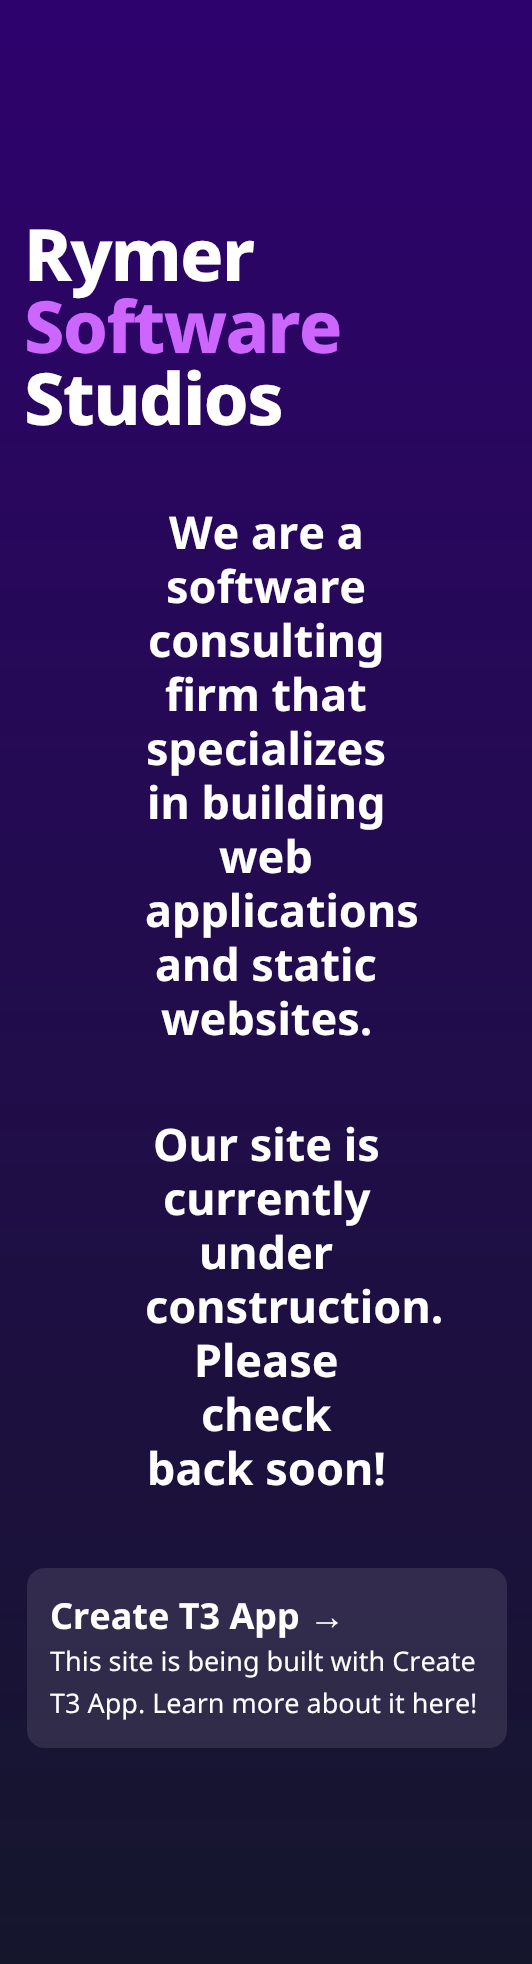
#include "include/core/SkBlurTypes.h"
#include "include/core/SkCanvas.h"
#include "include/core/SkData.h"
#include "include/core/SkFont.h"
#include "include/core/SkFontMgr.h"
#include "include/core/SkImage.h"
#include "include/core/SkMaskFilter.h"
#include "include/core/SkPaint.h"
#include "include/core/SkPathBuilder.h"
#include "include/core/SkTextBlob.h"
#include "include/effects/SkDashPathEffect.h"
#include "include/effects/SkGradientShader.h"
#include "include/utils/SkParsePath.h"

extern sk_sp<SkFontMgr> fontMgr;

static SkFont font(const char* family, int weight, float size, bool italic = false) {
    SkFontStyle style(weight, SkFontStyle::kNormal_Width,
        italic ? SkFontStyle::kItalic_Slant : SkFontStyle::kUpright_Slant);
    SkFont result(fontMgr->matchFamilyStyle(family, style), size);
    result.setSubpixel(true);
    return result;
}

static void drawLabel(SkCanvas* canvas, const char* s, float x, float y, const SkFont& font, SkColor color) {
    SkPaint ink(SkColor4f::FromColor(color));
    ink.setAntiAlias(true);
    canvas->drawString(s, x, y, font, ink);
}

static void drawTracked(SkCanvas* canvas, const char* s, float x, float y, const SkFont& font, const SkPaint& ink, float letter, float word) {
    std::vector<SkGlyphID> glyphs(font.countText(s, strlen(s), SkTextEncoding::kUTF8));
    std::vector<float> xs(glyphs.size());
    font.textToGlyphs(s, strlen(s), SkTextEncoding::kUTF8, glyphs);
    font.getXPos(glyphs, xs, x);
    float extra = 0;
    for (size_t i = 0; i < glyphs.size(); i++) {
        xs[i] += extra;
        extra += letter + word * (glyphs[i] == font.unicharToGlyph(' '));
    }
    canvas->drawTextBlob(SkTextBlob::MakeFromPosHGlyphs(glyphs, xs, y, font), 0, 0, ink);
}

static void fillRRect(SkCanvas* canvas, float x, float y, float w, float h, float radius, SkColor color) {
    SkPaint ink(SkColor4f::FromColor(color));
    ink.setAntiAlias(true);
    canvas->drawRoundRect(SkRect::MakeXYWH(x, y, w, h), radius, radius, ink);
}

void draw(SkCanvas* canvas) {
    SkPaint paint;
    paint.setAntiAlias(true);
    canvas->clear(0xFFFFFFFF);
    {
        const SkColor colors[] = {0xFF2E026D, 0xFF15162C};
        const float stops[] = {0, 1};
        const SkPoint ends[] = {{266, 0}, {266, 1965}};
        paint.setShader(SkGradientShader::MakeLinear(ends, colors, stops, 2, SkTileMode::kClamp));
        paint.setAlpha(255);
    }
    canvas->drawRect(SkRect::MakeXYWH(0, 0, 532, 1964), paint);
    SkFont font1 = font("Noto Sans", 800, 72);
    paint.setShader(nullptr);
    paint.setColor(0xFFFFFFFF);
    drawTracked(canvas, "Rymer", 24, 281, font1, paint, -1.75f, 0);
    paint.setColor(0xFFCC66FF);
    drawTracked(canvas, "Software", 24, 353, font1, paint, -1.75f, 0);
    paint.setColor(0xFFFFFFFF);
    drawTracked(canvas, "Studios", 24, 425, font1, paint, -1.75f, 0);
    SkFont font2 = font("Noto Sans", 700, 45);
    drawLabel(canvas, "We are a", 169, 549, font2, 0xFFFFFFFF);
    drawLabel(canvas, "software", 166, 603, font2, 0xFFFFFFFF);
    drawLabel(canvas, "consulting", 148, 657, font2, 0xFFFFFFFF);
    drawLabel(canvas, "firm that", 165, 711, font2, 0xFFFFFFFF);
    drawLabel(canvas, "specializes", 146, 765, font2, 0xFFFFFFFF);
    drawLabel(canvas, "in building", 147, 819, font2, 0xFFFFFFFF);
    drawLabel(canvas, "web", 219, 873, font2, 0xFFFFFFFF);
    drawLabel(canvas, "applications", 145, 927, font2, 0xFFFFFFFF);
    drawLabel(canvas, "and static", 155, 981, font2, 0xFFFFFFFF);
    drawLabel(canvas, "websites.", 161, 1035, font2, 0xFFFFFFFF);
    drawLabel(canvas, "Our site is", 153, 1161, font2, 0xFFFFFFFF);
    drawLabel(canvas, "currently", 163, 1215, font2, 0xFFFFFFFF);
    drawLabel(canvas, "under", 199, 1269, font2, 0xFFFFFFFF);
    drawLabel(canvas, "construction.", 145, 1323, font2, 0xFFFFFFFF);
    drawLabel(canvas, "Please", 194, 1377, font2, 0xFFFFFFFF);
    drawLabel(canvas, "check", 201, 1431, font2, 0xFFFFFFFF);
    drawLabel(canvas, "back soon!", 147, 1485, font2, 0xFFFFFFFF);
    fillRRect(canvas, 27, 1568, 480, 180, 18, 0x1AFFFFFF);
    SkFont font3 = font("Noto Sans", 700, 36);
    drawLabel(canvas, "Create T3 App", 50, 1629, font3, 0xFFFFFFFF);
    SkFont font4 = font("Liberation Sans", 700, 36);
    drawLabel(canvas, "→", 309, 1629, font4, 0xFFFFFFFF);
    SkFont font5 = font("Noto Sans", 400, 27);
    drawLabel(canvas, "This site is being built with Create", 50, 1671, font5, 0xFFFFFFFF);
    drawLabel(canvas, "T3 App. Learn more about it here!", 50, 1713, font5, 0xFFFFFFFF);
}
